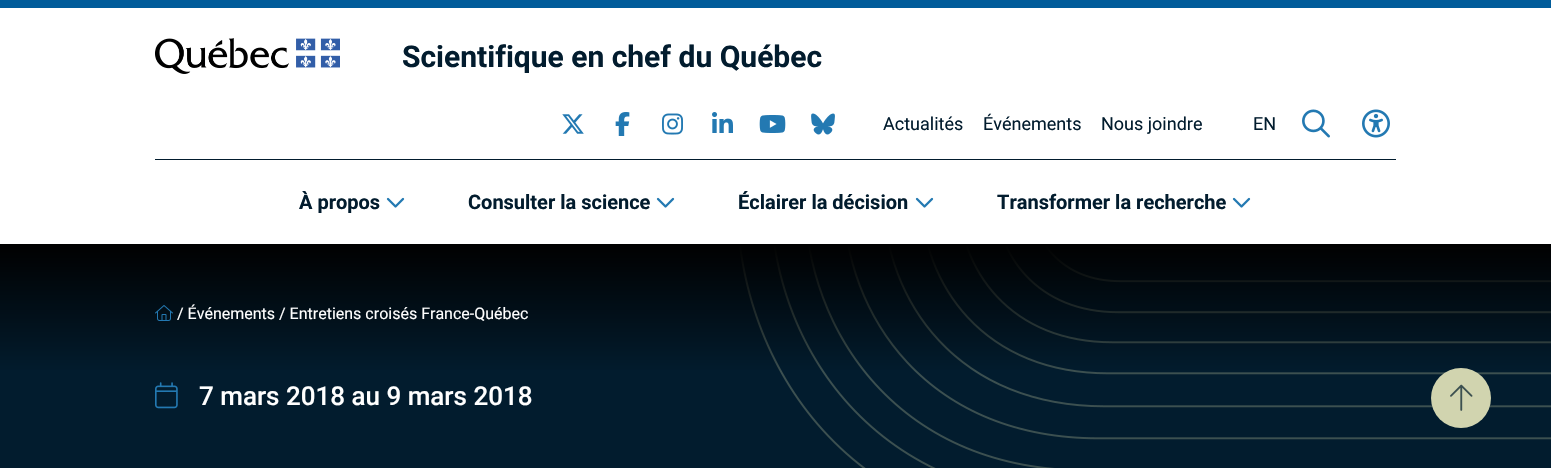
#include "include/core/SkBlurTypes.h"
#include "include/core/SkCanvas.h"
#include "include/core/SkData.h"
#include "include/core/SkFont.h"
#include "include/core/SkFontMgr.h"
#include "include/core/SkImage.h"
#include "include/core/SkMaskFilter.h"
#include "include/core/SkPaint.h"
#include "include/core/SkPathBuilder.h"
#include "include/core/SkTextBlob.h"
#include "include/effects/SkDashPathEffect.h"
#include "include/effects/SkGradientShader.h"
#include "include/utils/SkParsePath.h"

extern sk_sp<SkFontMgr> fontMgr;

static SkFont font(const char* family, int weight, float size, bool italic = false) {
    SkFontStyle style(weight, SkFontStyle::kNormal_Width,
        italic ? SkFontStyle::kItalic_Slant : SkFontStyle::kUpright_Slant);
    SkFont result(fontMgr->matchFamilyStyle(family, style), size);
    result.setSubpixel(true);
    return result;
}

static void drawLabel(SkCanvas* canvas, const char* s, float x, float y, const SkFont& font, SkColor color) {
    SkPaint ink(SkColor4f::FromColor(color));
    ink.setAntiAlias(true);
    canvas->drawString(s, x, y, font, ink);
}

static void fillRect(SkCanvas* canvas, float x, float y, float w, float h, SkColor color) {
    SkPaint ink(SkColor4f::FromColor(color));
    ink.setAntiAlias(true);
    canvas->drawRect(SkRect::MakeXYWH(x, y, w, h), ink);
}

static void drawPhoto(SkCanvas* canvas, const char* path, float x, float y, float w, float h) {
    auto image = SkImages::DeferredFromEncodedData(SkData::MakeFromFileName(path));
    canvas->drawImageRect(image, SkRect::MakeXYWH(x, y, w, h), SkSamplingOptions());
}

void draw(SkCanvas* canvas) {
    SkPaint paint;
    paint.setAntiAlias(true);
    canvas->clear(0xFF021C2E);
    fillRect(canvas, 0, 0, 1551, 8, 0xFF015C9A);
    fillRect(canvas, 0, 8, 1551, 236, 0xFFFFFFFF);
    fillRect(canvas, 155, 159, 1241, 1, 0xFF021C2E);
    drawPhoto(canvas, "assets/img1.png", 155, 38, 185, 36);
    SkFont font1 = font("Roboto", 700, 30);
    drawLabel(canvas, "Scientifique en chef du Québec", 402, 67, font1, 0xFF021C2E);
    drawPhoto(canvas, "assets/img2.png", 562, 114, 22, 20);
    drawPhoto(canvas, "assets/img3.png", 615, 112, 15, 24);
    drawPhoto(canvas, "assets/img4.png", 662, 113, 21, 22);
    drawPhoto(canvas, "assets/img5.png", 712, 112, 21, 21);
    drawPhoto(canvas, "assets/img6.png", 759, 115, 27, 18);
    drawPhoto(canvas, "assets/img7.png", 811, 113, 24, 22);
    SkFont font2 = font("Roboto", 400, 18);
    drawLabel(canvas, "Actualités", 883, 130, font2, 0xFF021C2E);
    drawLabel(canvas, "Événements", 983, 130, font2, 0xFF021C2E);
    drawLabel(canvas, "Nous joindre", 1101, 130, font2, 0xFF021C2E);
    drawLabel(canvas, "EN", 1253, 130, font2, 0xFF021C2E);
    drawPhoto(canvas, "assets/img8.png", 1302, 109, 28, 29);
    drawPhoto(canvas, "assets/img9.png", 1362, 109, 28, 29);
    SkFont font3 = font("Roboto", 700, 20);
    drawLabel(canvas, "À propos", 299, 209, font3, 0xFF021C2E);
    drawPhoto(canvas, "assets/img10.png", 386, 197, 19, 11);
    drawLabel(canvas, "Consulter la science", 468, 209, font3, 0xFF021C2E);
    drawPhoto(canvas, "assets/img10.png", 656, 197, 19, 11);
    drawLabel(canvas, "Éclairer la décision", 738, 209, font3, 0xFF021C2E);
    drawPhoto(canvas, "assets/img10.png", 915, 197, 19, 11);
    drawLabel(canvas, "Transformer la recherche", 997, 209, font3, 0xFF021C2E);
    drawPhoto(canvas, "assets/img10.png", 1232, 197, 19, 11);
    drawPhoto(canvas, "assets/img11.png", 739, 245, 812, 223);
    {
        const SkColor colors[] = {0xFF000000, 0x00000000};
        const float stops[] = {0, 1};
        const SkPoint ends[] = {{776, 244}, {776, 374}};
        paint.setShader(SkGradientShader::MakeLinear(ends, colors, stops, 2, SkTileMode::kClamp));
        paint.setAlpha(255);
    }
    canvas->drawRect(SkRect::MakeXYWH(0, 244, 1551, 126), paint);
    drawPhoto(canvas, "assets/img12.png", 155, 305, 18, 16);
    SkFont font4 = font("Roboto", 400, 16);
    drawLabel(canvas, "/ Événements / Entretiens croisés France-Québec", 177, 319, font4, 0xFFFFFFFF);
    drawPhoto(canvas, "assets/img13.png", 155, 382, 23, 27);
    SkFont font5 = font("Roboto", 500, 26);
    drawLabel(canvas, "7 mars 2018 au 9 mars 2018", 199, 405, font5, 0xFFFFFFFF);
    paint.setShader(nullptr);
    paint.setColor(0xFFD1D4AF);
    canvas->drawCircle(1461, 398, 30, paint);
    drawPhoto(canvas, "assets/img14.png", 1450, 384, 23, 27);
}
